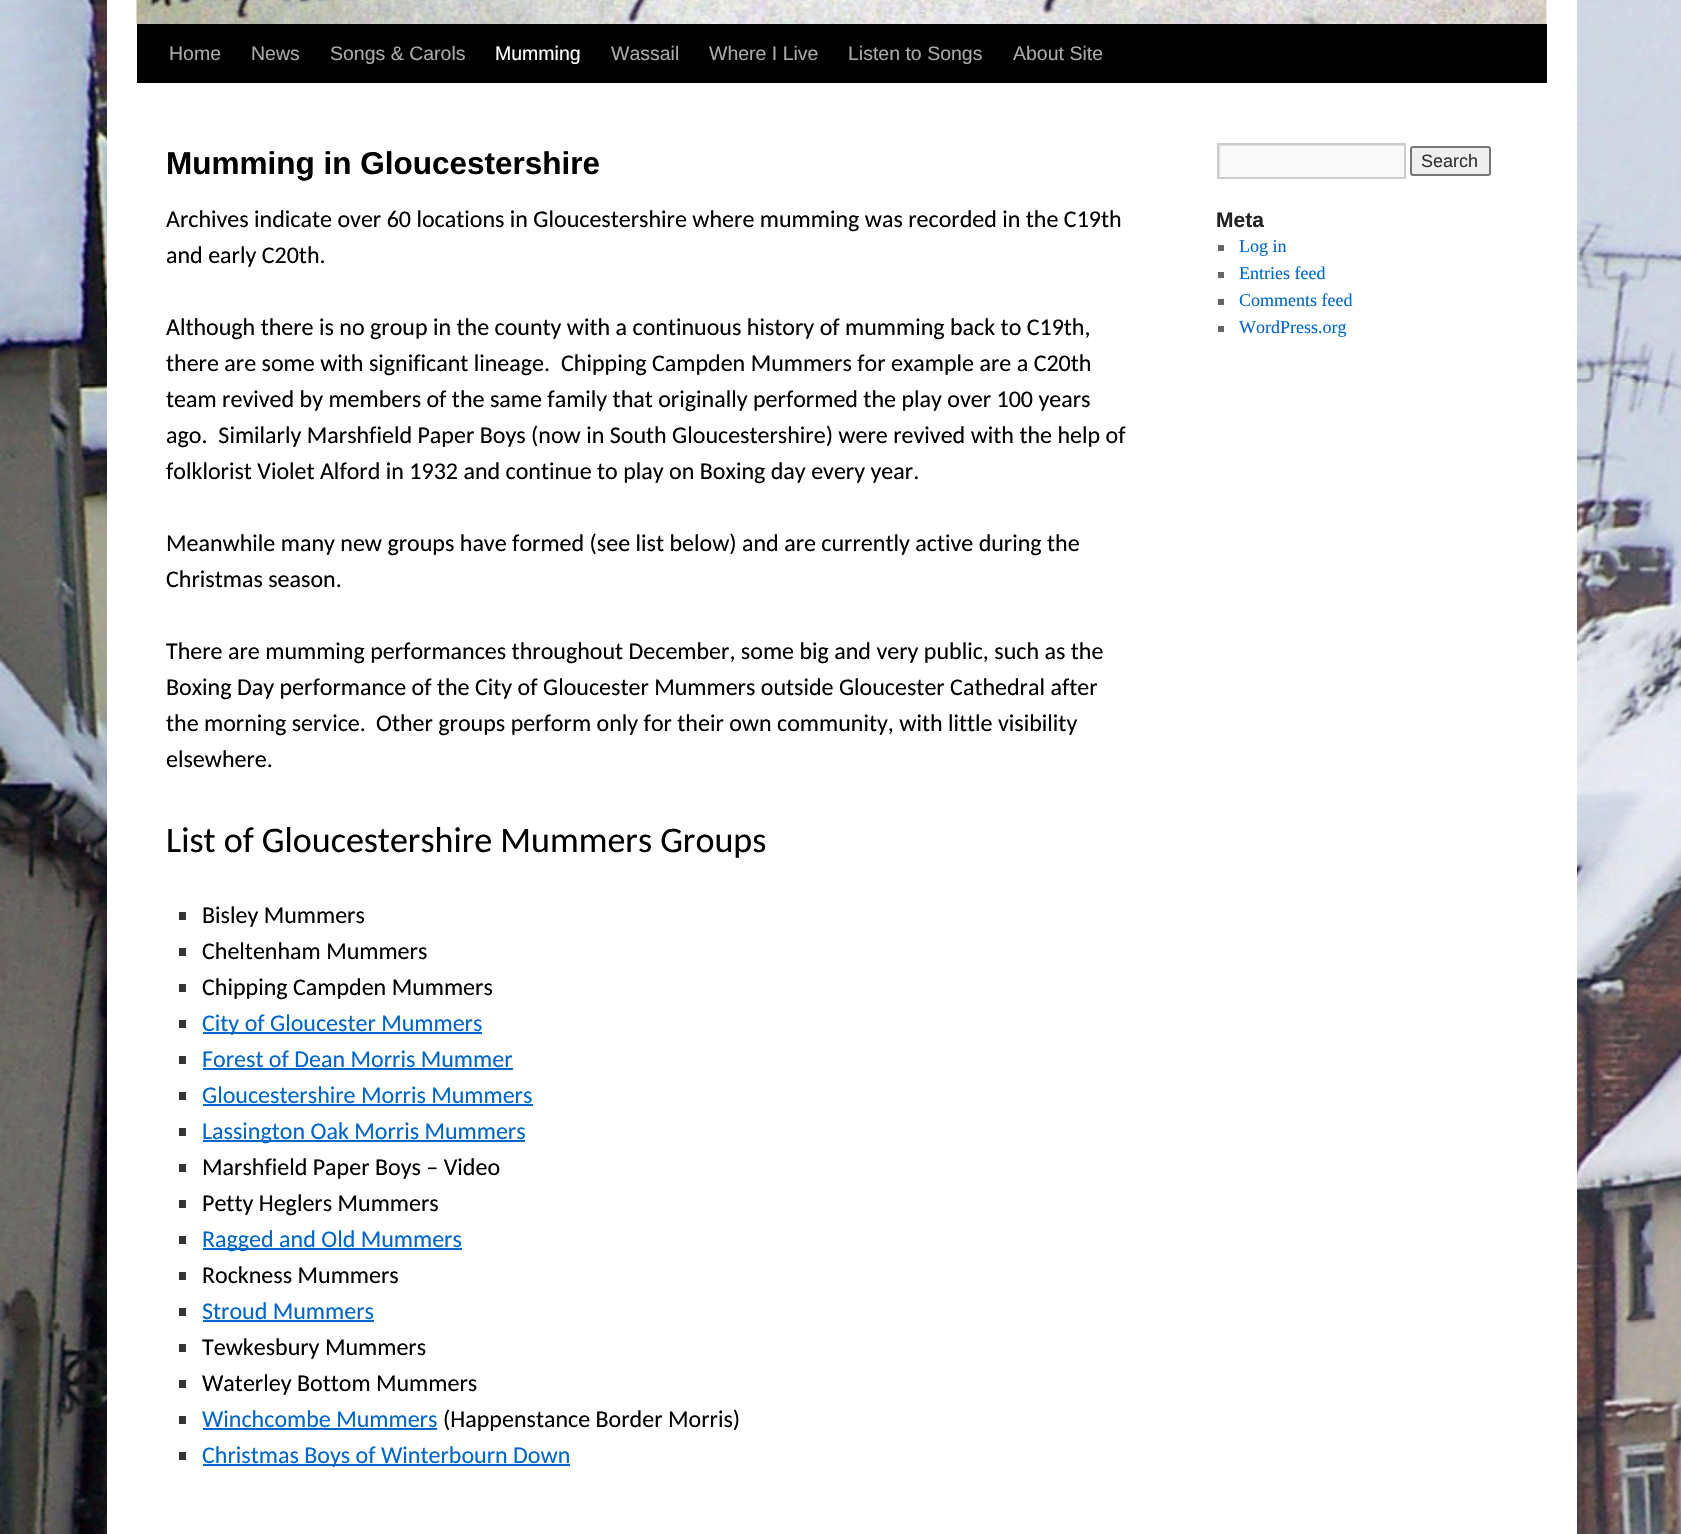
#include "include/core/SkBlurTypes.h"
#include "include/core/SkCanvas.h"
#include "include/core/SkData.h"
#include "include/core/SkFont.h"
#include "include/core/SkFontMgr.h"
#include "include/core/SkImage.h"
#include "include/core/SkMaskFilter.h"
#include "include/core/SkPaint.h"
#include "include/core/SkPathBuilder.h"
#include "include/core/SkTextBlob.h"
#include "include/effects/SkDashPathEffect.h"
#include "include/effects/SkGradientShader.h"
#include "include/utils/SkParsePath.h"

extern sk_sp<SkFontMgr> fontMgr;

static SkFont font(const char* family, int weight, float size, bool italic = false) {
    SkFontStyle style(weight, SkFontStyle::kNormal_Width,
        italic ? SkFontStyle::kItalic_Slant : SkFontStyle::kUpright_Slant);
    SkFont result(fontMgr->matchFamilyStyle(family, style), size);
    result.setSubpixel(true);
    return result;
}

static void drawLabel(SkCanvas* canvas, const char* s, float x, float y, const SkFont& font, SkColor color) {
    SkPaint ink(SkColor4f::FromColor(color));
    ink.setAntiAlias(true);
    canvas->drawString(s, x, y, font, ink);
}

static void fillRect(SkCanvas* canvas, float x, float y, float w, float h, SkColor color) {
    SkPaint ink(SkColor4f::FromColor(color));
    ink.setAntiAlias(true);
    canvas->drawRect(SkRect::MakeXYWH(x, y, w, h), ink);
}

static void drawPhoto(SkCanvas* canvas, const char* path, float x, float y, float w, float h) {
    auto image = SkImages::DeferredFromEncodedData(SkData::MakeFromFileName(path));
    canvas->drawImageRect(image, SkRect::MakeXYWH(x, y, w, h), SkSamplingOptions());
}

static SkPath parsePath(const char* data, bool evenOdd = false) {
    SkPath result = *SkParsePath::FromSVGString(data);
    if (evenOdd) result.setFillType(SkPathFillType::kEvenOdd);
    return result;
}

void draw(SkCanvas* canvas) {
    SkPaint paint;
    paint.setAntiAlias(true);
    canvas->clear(0xFFFFFFFF);
    drawPhoto(canvas, "assets/img1.png", 0, 0, 1681, 1534);
    fillRect(canvas, 107, 0, 1470, 1534, 0xFFFFFFFF);
    fillRect(canvas, 137, 24, 1410, 59, 0xFF000000);
    drawPhoto(canvas, "assets/img2.png", 136, 0, 1411, 24);
    SkFont font1 = font("Liberation Sans", 400, 19.5f);
    drawLabel(canvas, "Home", 169, 60, font1, 0xFFAAAAAA);
    drawLabel(canvas, "News", 251, 60, font1, 0xFFAAAAAA);
    drawLabel(canvas, "Songs & Carols", 330, 60, font1, 0xFFAAAAAA);
    drawLabel(canvas, "Mumming", 495, 60, font1, 0xFFFFFFFF);
    drawLabel(canvas, "Wassail", 611, 60, font1, 0xFFAAAAAA);
    drawLabel(canvas, "Where I Live", 709, 60, font1, 0xFFAAAAAA);
    drawLabel(canvas, "Listen to Songs", 848, 60, font1, 0xFFAAAAAA);
    drawLabel(canvas, "About Site", 1013, 60, font1, 0xFFAAAAAA);
    SkFont font2 = font("Liberation Sans", 700, 31.5f);
    drawLabel(canvas, "Mumming in Gloucestershire", 166, 174, font2, 0xFF000000);
    SkFont font3 = font("Carlito", 400, 24);
    drawLabel(canvas, "Archives indicate over 60 locations in Gloucestershire where mumming was recorded in the C19th", 166, 227, font3, 0xFF000000);
    drawLabel(canvas, "and early C20th.", 166, 263, font3, 0xFF000000);
    drawLabel(canvas, "Although there is no group in the county with a continuous history of mumming back to C19th,", 166, 335, font3, 0xFF000000);
    drawLabel(canvas, "there are some with significant lineage.", 166, 371, font3, 0xFF000000);
    drawLabel(canvas, "Chipping Campden Mummers for example are a C20th", 561, 371, font3, 0xFF000000);
    drawLabel(canvas, "team revived by members of the same family that originally performed the play over 100 years", 166, 407, font3, 0xFF000000);
    drawLabel(canvas, "ago.  Similarly Marshfield Paper Boys (now in South Gloucestershire) were revived with the help of", 166, 443, font3, 0xFF000000);
    drawLabel(canvas, "folklorist Violet Alford in 1932 and continue to play on Boxing day every year.", 166, 479, font3, 0xFF000000);
    drawLabel(canvas, "Meanwhile many new groups have formed (see list below) and are currently active during the", 166, 551, font3, 0xFF000000);
    drawLabel(canvas, "Christmas season.", 166, 587, font3, 0xFF000000);
    drawLabel(canvas, "There are mumming performances throughout December, some big and very public, such as the", 166, 659, font3, 0xFF000000);
    drawLabel(canvas, "Boxing Day performance of the City of Gloucester Mummers outside Gloucester Cathedral after", 166, 695, font3, 0xFF000000);
    drawLabel(canvas, "the morning service.", 166, 731, font3, 0xFF000000);
    drawLabel(canvas, "Other groups perform only for their own community, with little visibility", 376, 731, font3, 0xFF000000);
    drawLabel(canvas, "elsewhere.", 166, 767, font3, 0xFF000000);
    SkFont font4 = font("Carlito", 400, 36);
    drawLabel(canvas, "List of Gloucestershire Mummers Groups", 166, 852, font4, 0xFF000000);
    fillRect(canvas, 179, 912, 7, 8, 0xFF333333);
    drawLabel(canvas, "Bisley Mummers", 202, 923, font3, 0xFF000000);
    fillRect(canvas, 179, 948, 7, 8, 0xFF333333);
    drawLabel(canvas, "Cheltenham Mummers", 202, 959, font3, 0xFF000000);
    fillRect(canvas, 179, 984, 7, 8, 0xFF333333);
    drawLabel(canvas, "Chipping Campden Mummers", 202, 995, font3, 0xFF000000);
    fillRect(canvas, 179, 1020, 7, 8, 0xFF333333);
    fillRect(canvas, 203, 1032, 279, 2, 0xFF0066CC);
    drawLabel(canvas, "City of Gloucester Mummers", 202, 1031, font3, 0xFF0066CC);
    fillRect(canvas, 179, 1056, 7, 8, 0xFF333333);
    drawLabel(canvas, "Forest of Dean Morris Mummer", 202, 1067, font3, 0xFF0066CC);
    fillRect(canvas, 203, 1068, 310, 2, 0xFF0066CC);
    fillRect(canvas, 179, 1092, 7, 8, 0xFF333333);
    drawLabel(canvas, "Gloucestershire Morris Mummers", 202, 1103, font3, 0xFF0066CC);
    fillRect(canvas, 203, 1104, 330, 2, 0xFF0066CC);
    fillRect(canvas, 179, 1128, 7, 8, 0xFF333333);
    fillRect(canvas, 203, 1140, 322, 2, 0xFF0066CC);
    drawLabel(canvas, "Lassington Oak Morris Mummers", 202, 1139, font3, 0xFF0066CC);
    fillRect(canvas, 179, 1164, 7, 8, 0xFF333333);
    drawLabel(canvas, "Marshfield Paper Boys – Video", 202, 1175, font3, 0xFF000000);
    fillRect(canvas, 179, 1200, 7, 8, 0xFF333333);
    drawLabel(canvas, "Petty Heglers Mummers", 202, 1211, font3, 0xFF000000);
    fillRect(canvas, 179, 1236, 7, 8, 0xFF333333);
    fillRect(canvas, 203, 1248, 259, 2, 0xFF0066CC);
    drawLabel(canvas, "Ragged and Old Mummers", 202, 1247, font3, 0xFF0066CC);
    fillRect(canvas, 179, 1272, 7, 8, 0xFF333333);
    drawLabel(canvas, "Rockness Mummers", 202, 1283, font3, 0xFF000000);
    fillRect(canvas, 179, 1308, 7, 8, 0xFF333333);
    drawLabel(canvas, "Stroud Mummers", 202, 1319, font3, 0xFF0066CC);
    fillRect(canvas, 203, 1320, 171, 2, 0xFF0066CC);
    fillRect(canvas, 179, 1344, 7, 8, 0xFF333333);
    drawLabel(canvas, "Tewkesbury Mummers", 202, 1355, font3, 0xFF000000);
    fillRect(canvas, 179, 1380, 7, 8, 0xFF333333);
    drawLabel(canvas, "Waterley Bottom Mummers", 202, 1391, font3, 0xFF000000);
    fillRect(canvas, 179, 1416, 7, 8, 0xFF333333);
    drawLabel(canvas, "Winchcombe Mummers", 202, 1427, font3, 0xFF0066CC);
    fillRect(canvas, 203, 1428, 234, 2, 0xFF0066CC);
    drawLabel(canvas, "(Happenstance Border Morris)", 443, 1427, font3, 0xFF000000);
    fillRect(canvas, 179, 1452, 7, 8, 0xFF333333);
    fillRect(canvas, 203, 1464, 367, 2, 0xFF0066CC);
    drawLabel(canvas, "Christmas Boys of Winterbourn Down", 202, 1463, font3, 0xFF0066CC);
    fillRect(canvas, 1220, 146, 184, 31, 0xFFF9F9F9);
    canvas->save();
    canvas->clipRect(SkRect::MakeXYWH(1218, 144, 186, 33));
    paint.setColor(0xFFE0E0E0);
    canvas->drawPath(parsePath("M1070-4H1552V326H1070ZM1220 146H1406V178H1220Z", true), paint);
    canvas->restore();
    paint.setStroke(true);
    paint.setStrokeWidth(2);
    paint.setColor(0xFFCCCCCC);
    canvas->drawRect(SkRect::MakeXYWH(1218, 144, 187, 34), paint);
    paint.setStroke(false);
    paint.setColor(0xFFEFEFEF);
    canvas->drawRoundRect(SkRect::MakeXYWH(1411, 147, 79, 28), 2, 2, paint);
    paint.setStroke(true);
    paint.setColor(0xFF767676);
    canvas->drawRoundRect(SkRect::MakeXYWH(1411, 147, 79, 28), 2, 2, paint);
    SkFont font5 = font("Liberation Sans", 400, 18);
    drawLabel(canvas, "Search", 1421, 167, font5, 0xFF333333);
    SkFont font6 = font("Liberation Sans", 700, 21);
    drawLabel(canvas, "Meta", 1216, 227, font6, 0xFF222222);
    fillRect(canvas, 1218, 245, 6, 6, 0xFF666666);
    SkFont font7 = font("Liberation Serif", 400, 18);
    drawLabel(canvas, "Log in", 1239, 252, font7, 0xFF0066CC);
    fillRect(canvas, 1218, 272, 6, 6, 0xFF666666);
    drawLabel(canvas, "Entries feed", 1239, 279, font7, 0xFF0066CC);
    fillRect(canvas, 1218, 299, 6, 6, 0xFF666666);
    drawLabel(canvas, "Comments feed", 1239, 306, font7, 0xFF0066CC);
    fillRect(canvas, 1218, 326, 6, 6, 0xFF666666);
    drawLabel(canvas, "WordPress.org", 1239, 333, font7, 0xFF0066CC);
}
